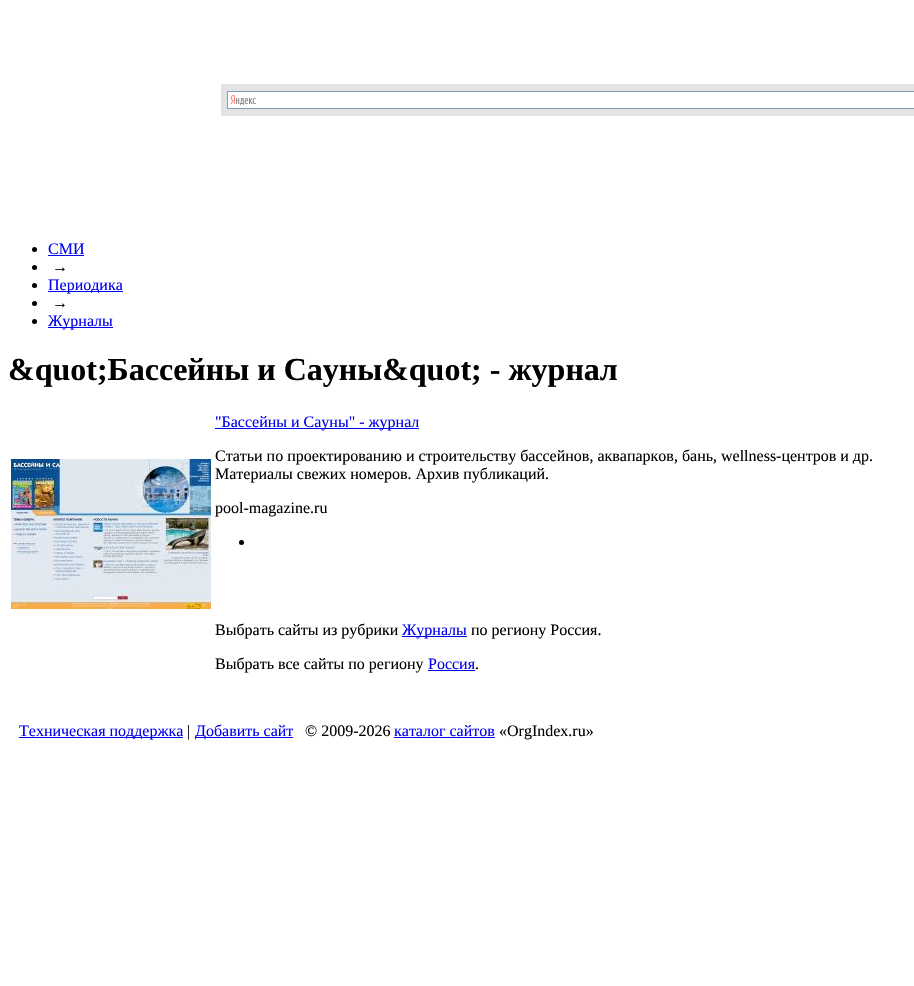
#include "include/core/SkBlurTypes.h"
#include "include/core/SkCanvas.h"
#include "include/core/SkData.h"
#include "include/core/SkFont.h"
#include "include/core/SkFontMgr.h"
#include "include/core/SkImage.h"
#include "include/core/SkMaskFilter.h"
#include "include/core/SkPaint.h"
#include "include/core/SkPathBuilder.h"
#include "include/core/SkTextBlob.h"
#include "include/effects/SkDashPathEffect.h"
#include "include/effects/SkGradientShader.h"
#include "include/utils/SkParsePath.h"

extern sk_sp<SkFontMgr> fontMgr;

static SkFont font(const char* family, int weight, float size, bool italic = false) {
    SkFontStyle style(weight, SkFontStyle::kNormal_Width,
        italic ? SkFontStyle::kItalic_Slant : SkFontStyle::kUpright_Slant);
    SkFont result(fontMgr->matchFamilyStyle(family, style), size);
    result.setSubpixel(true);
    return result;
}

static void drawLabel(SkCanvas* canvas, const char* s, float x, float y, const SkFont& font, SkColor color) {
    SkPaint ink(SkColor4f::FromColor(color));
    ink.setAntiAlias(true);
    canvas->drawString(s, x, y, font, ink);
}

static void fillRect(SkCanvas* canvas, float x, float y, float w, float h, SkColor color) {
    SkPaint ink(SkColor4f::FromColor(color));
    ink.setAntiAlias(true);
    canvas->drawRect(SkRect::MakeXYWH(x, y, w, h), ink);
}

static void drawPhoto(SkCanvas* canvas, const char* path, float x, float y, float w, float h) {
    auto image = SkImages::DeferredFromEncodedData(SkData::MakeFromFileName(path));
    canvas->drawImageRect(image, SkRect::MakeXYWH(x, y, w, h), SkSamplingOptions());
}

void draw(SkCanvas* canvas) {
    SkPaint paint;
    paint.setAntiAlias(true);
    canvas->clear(0xFFFFFFFF);
    fillRect(canvas, 221, 84, 693, 32, 0xFFE3E3E3);
    fillRect(canvas, 228, 92, 686, 16, 0xFFFFFFFF);
    drawPhoto(canvas, "assets/img1.png", 230, 95, 26, 11);
    paint.setStroke(true);
    paint.setStrokeWidth(1);
    paint.setColor(0xFF7F9DB9);
    canvas->drawRect(SkRect::MakeXYWH(227.5f, 91.5f, 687, 17), paint);
    paint.setStroke(false);
    paint.setColor(0xFF000000);
    canvas->drawCircle(34.5f, 249.5f, 2.5f, paint);
    SkFont font1 = font("Liberation Serif", 400, 16);
    drawLabel(canvas, "СМИ", 48, 254, font1, 0xFF0000EE);
    fillRect(canvas, 48, 255, 36, 1, 0xFF0000EE);
    canvas->drawCircle(34.5f, 267.5f, 2.5f, paint);
    drawLabel(canvas, "→", 52, 272, font1, 0xFF000000);
    canvas->drawCircle(34.5f, 285.5f, 2.5f, paint);
    fillRect(canvas, 48, 291, 75, 1, 0xFF0000EE);
    drawLabel(canvas, "Периодика", 48, 290, font1, 0xFF0000EE);
    canvas->drawCircle(34.5f, 303.5f, 2.5f, paint);
    drawLabel(canvas, "→", 52, 308, font1, 0xFF000000);
    canvas->drawCircle(34.5f, 321.5f, 2.5f, paint);
    fillRect(canvas, 48, 327, 65, 1, 0xFF0000EE);
    drawLabel(canvas, "Журналы", 48, 326, font1, 0xFF0000EE);
    SkFont font2 = font("Liberation Serif", 700, 32);
    drawLabel(canvas, "&quot;Бассейны и Сауны&quot; - журнал", 8, 380, font2, 0xFF000000);
    drawPhoto(canvas, "assets/img2.png", 11, 459, 200, 150);
    fillRect(canvas, 215, 428, 204, 1, 0xFF0000EE);
    drawLabel(canvas, "\"Бассейны и Сауны\" - журнал", 215, 427, font1, 0xFF0000EE);
    drawLabel(canvas, "Статьи по проектированию и строительству бассейнов, аквапарков, бань, wellness-центров и др.", 215, 461, font1, 0xFF000000);
    drawLabel(canvas, "Материалы свежих номеров. Архив публикаций.", 215, 479, font1, 0xFF000000);
    drawLabel(canvas, "pool-magazine.ru", 215, 513, font1, 0xFF000000);
    canvas->drawCircle(241.5f, 542.5f, 2.5f, paint);
    drawLabel(canvas, "Выбрать сайты из рубрики", 215, 635, font1, 0xFF000000);
    fillRect(canvas, 402, 636, 65, 1, 0xFF0000EE);
    drawLabel(canvas, "Журналы", 402, 635, font1, 0xFF0000EE);
    drawLabel(canvas, "по региону Россия.", 471, 635, font1, 0xFF000000);
    drawLabel(canvas, "Выбрать все сайты по региону", 215, 669, font1, 0xFF000000);
    drawLabel(canvas, "Россия", 428, 669, font1, 0xFF0000EE);
    fillRect(canvas, 428, 670, 47, 1, 0xFF0000EE);
    drawLabel(canvas, ".", 475, 669, font1, 0xFF000000);
    fillRect(canvas, 19, 737, 164, 1, 0xFF0000EE);
    drawLabel(canvas, "Техническая поддержка", 19, 736, font1, 0xFF0000EE);
    drawLabel(canvas, "|", 187, 736, font1, 0xFF000000);
    fillRect(canvas, 195, 737, 98, 1, 0xFF0000EE);
    drawLabel(canvas, "Добавить сайт", 195, 736, font1, 0xFF0000EE);
    drawLabel(canvas, "© 2009-2026", 305, 736, font1, 0xFF000000);
    drawLabel(canvas, "каталог сайтов", 394, 736, font1, 0xFF0000EE);
    fillRect(canvas, 394, 737, 101, 1, 0xFF0000EE);
    drawLabel(canvas, "«OrgIndex.ru»", 499, 736, font1, 0xFF000000);
}
